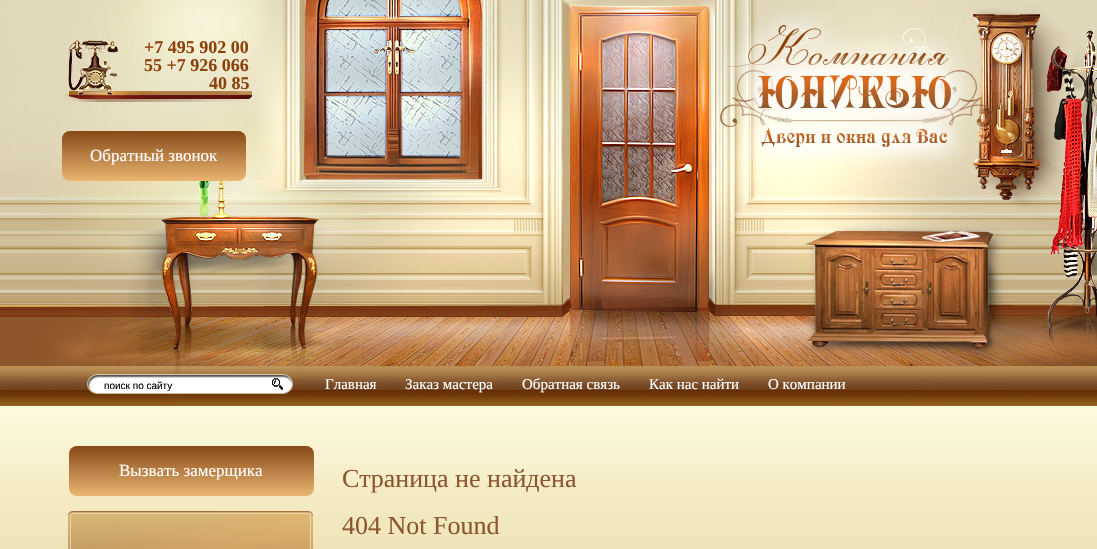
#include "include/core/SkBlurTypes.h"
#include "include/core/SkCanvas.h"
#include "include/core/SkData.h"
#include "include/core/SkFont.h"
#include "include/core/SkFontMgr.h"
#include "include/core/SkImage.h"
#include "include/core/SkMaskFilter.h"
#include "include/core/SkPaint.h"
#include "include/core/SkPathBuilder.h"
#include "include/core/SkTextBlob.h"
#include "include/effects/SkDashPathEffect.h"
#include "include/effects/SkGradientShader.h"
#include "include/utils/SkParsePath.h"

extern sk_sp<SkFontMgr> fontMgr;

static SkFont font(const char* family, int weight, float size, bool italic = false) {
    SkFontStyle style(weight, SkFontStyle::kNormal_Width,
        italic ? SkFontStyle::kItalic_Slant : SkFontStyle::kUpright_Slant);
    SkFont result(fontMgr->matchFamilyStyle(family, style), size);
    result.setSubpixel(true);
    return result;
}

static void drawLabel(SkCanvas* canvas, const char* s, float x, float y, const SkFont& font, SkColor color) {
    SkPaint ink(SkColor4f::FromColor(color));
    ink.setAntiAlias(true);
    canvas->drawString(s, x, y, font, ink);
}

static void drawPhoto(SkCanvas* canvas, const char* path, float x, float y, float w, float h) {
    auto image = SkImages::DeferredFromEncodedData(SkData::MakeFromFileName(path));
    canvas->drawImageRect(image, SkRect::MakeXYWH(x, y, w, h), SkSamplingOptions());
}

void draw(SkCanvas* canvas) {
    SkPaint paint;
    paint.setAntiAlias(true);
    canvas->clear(0xFFEEE3B7);
    drawPhoto(canvas, "assets/img1.png", 0, 408, 1097, 128);
    drawPhoto(canvas, "assets/img2.png", 0, 0, 1097, 408);
    drawPhoto(canvas, "assets/img3.png", 62, 39, 190, 63);
    SkFont font1 = font("Liberation Serif", 700, 18);
    drawLabel(canvas, "+7 495 902 00", 144, 53, font1, 0xFF8E410D);
    drawLabel(canvas, "55 +7 926 066", 144, 71, font1, 0xFF8E410D);
    drawLabel(canvas, "40 85", 209, 89, font1, 0xFF8E410D);
    drawPhoto(canvas, "assets/img4.png", 720, 10, 274, 156);
    {
        const SkColor colors[] = {0xFFEAB671, 0xFF874918};
        const float stops[] = {0, 1};
        const SkPoint ends[] = {{154, 181}, {154, 131}};
        paint.setShader(SkGradientShader::MakeLinear(ends, colors, stops, 2, SkTileMode::kClamp));
        paint.setAlpha(255);
    }
    canvas->drawRoundRect(SkRect::MakeXYWH(62, 131, 184, 50), 8, 8, paint);
    SkFont font2 = font("Liberation Serif", 400, 17);
    drawLabel(canvas, "Обратный звонок", 90, 161, font2, 0xFFFFFFFF);
    drawPhoto(canvas, "assets/img5.png", 87, 374, 206, 20);
    SkFont font3 = font("Liberation Sans", 400, 10);
    drawLabel(canvas, "поиск по сайту", 104, 389, font3, 0xFF000000);
    SkFont font4 = font("Liberation Serif", 400, 15);
    drawLabel(canvas, "Главная", 325, 389, font4, 0xFFFFFFFF);
    drawLabel(canvas, "Заказ мастера", 405, 389, font4, 0xFFFFFFFF);
    drawLabel(canvas, "Обратная связь", 522, 389, font4, 0xFFFFFFFF);
    drawLabel(canvas, "Как нас найти", 649, 389, font4, 0xFFFFFFFF);
    drawLabel(canvas, "О компании", 768, 389, font4, 0xFFFFFFFF);
    {
        const SkColor colors[] = {0xFFEAB671, 0xFF874918};
        const float stops[] = {0, 1};
        const SkPoint ends[] = {{192, 496}, {192, 446}};
        paint.setShader(SkGradientShader::MakeLinear(ends, colors, stops, 2, SkTileMode::kClamp));
        paint.setAlpha(255);
    }
    canvas->drawRoundRect(SkRect::MakeXYWH(69, 446, 245, 50), 8, 8, paint);
    drawLabel(canvas, "Вызвать замерщика", 119, 476, font2, 0xFFFFFFFF);
    drawPhoto(canvas, "assets/img6.png", 68, 511, 245, 38);
    SkFont font5 = font("Liberation Serif", 400, 26);
    drawLabel(canvas, "Страница не найдена", 342, 487, font5, 0xFF8C562E);
    drawLabel(canvas, "404 Not Found", 342, 534, font5, 0xFF8C562E);
}
